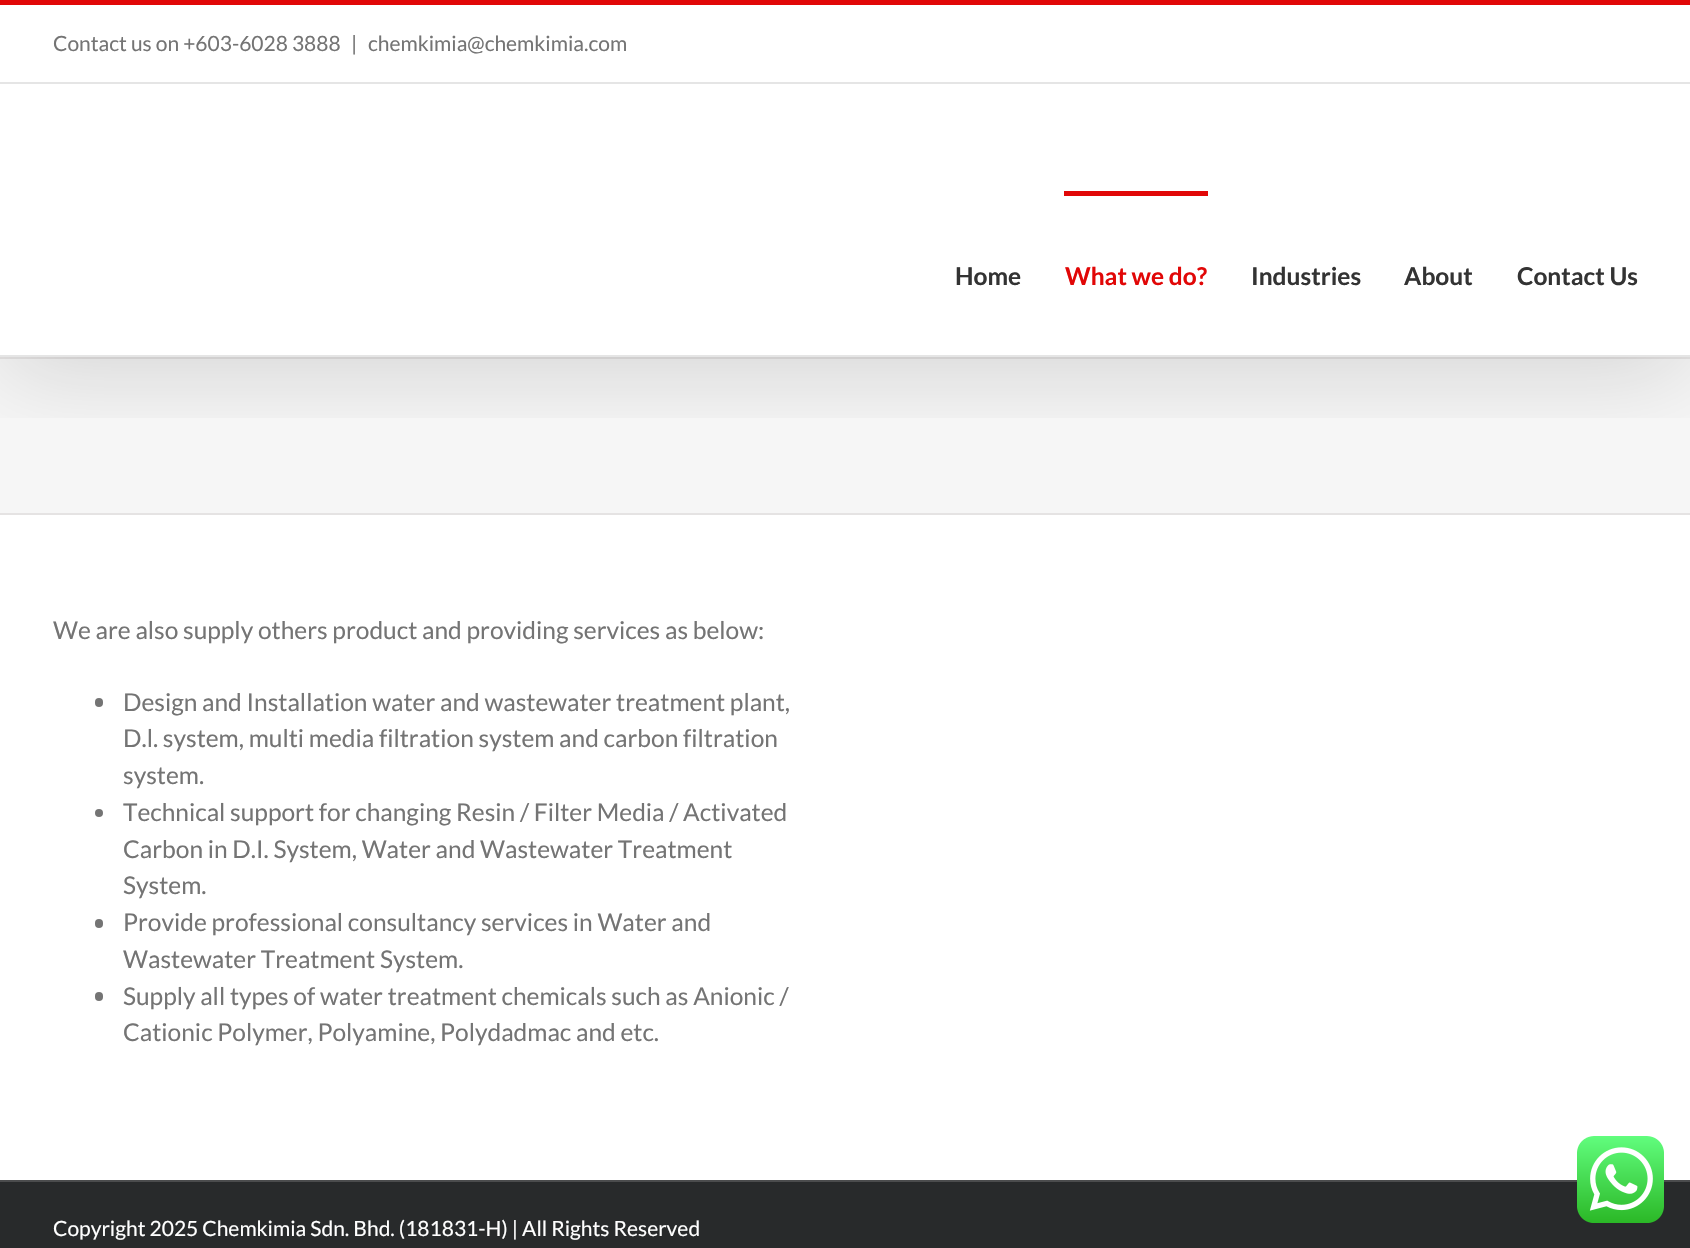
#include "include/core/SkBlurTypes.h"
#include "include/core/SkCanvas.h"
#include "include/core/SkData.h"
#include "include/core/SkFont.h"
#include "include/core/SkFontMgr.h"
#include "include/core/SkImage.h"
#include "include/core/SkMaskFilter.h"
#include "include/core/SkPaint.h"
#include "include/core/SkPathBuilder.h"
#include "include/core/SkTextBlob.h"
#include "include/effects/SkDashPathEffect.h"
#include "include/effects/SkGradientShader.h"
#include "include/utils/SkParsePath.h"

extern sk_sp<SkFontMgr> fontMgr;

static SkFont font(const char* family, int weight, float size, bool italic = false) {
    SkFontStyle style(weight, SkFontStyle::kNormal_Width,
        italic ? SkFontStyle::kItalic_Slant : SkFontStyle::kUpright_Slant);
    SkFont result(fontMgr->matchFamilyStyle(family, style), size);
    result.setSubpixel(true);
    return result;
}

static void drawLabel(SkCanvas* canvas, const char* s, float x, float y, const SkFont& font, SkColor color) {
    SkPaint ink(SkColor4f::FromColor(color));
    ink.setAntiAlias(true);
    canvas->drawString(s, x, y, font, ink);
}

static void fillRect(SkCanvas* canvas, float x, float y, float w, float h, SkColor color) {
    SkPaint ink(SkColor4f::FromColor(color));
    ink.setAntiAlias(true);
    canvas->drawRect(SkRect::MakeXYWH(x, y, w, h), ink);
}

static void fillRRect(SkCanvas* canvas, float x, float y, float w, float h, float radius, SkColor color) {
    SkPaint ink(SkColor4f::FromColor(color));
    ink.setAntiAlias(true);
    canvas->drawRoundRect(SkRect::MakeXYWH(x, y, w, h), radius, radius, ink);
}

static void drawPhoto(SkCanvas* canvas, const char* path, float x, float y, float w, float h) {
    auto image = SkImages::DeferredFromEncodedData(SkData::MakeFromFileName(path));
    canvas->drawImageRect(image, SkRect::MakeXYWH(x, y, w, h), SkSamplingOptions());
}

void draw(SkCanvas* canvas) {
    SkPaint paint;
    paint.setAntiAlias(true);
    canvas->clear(0xFFFFFFFF);
    fillRect(canvas, 0, 359, 1690, 154, 0xFFF6F6F6);
    fillRect(canvas, 0, 357, 1690, 2, 0xFFE5E3E3);
    canvas->save();
    canvas->clipRect(SkRect::MakeXYWH(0, 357, 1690, 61));
    paint.setColor(0x24000000);
    paint.setMaskFilter(SkMaskFilter::MakeBlur(kNormal_SkBlurStyle, 44));
    canvas->drawRect(SkRect::MakeXYWH(4, 21, 1683, 350), paint);
    paint.setMaskFilter(nullptr);
    canvas->restore();
    fillRect(canvas, 0, 0, 1690, 5, 0xFFE10707);
    fillRect(canvas, 0, 82, 1690, 2, 0xFFE5E5E5);
    SkFont font1 = font("Lato", 400, 21);
    drawLabel(canvas, "Contact us on +603-6028 3888", 53, 51, font1, 0xFF747474);
    drawLabel(canvas, "|", 351, 51, font1, 0xFF747474);
    drawLabel(canvas, "chemkimia@chemkimia.com", 368, 51, font1, 0xFF747474);
    fillRect(canvas, 0, 355, 1690, 2, 0xFFE5E5E5);
    SkFont font2 = font("Lato", 700, 24.5f);
    drawLabel(canvas, "Home", 955, 285, font2, 0xFF333333);
    fillRect(canvas, 1064, 191, 144, 5, 0xFFE10707);
    drawLabel(canvas, "What we do?", 1065, 285, font2, 0xFFE10707);
    drawLabel(canvas, "Industries", 1251, 285, font2, 0xFF333333);
    drawLabel(canvas, "About", 1404, 285, font2, 0xFF333333);
    drawLabel(canvas, "Contact Us", 1517, 285, font2, 0xFF333333);
    fillRect(canvas, 0, 513, 1690, 2, 0xFFE5E3E3);
    SkFont font3 = font("Lato", 400, 24.5f);
    drawLabel(canvas, "We are also supply others product and providing services as below:", 53, 639, font3, 0xFF747474);
    fillRRect(canvas, 95, 698, 8, 9, 4, 0xFF747474);
    drawLabel(canvas, "Design and Installation water and wastewater treatment plant,", 123, 711, font3, 0xFF747474);
    drawLabel(canvas, "D.l. system, multi media filtration system and carbon filtration", 123, 747, font3, 0xFF747474);
    drawLabel(canvas, "system.", 123, 784, font3, 0xFF747474);
    paint.setColor(0xFF747474);
    canvas->drawCircle(99, 813, 4, paint);
    drawLabel(canvas, "Technical support for changing Resin / Filter Media / Activated", 123, 821, font3, 0xFF747474);
    drawLabel(canvas, "Carbon in D.I. System, Water and Wastewater Treatment", 123, 858, font3, 0xFF747474);
    drawLabel(canvas, "System.", 123, 894, font3, 0xFF747474);
    fillRRect(canvas, 95, 919, 8, 9, 4, 0xFF747474);
    drawLabel(canvas, "Provide professional consultancy services in Water and", 123, 931, font3, 0xFF747474);
    drawLabel(canvas, "Wastewater Treatment System.", 123, 968, font3, 0xFF747474);
    fillRRect(canvas, 95, 992, 8, 9, 4, 0xFF747474);
    drawLabel(canvas, "Supply all types of water treatment chemicals such as Anionic /", 123, 1005, font3, 0xFF747474);
    drawLabel(canvas, "Cationic Polymer, Polyamine, Polydadmac and etc.", 123, 1041, font3, 0xFF747474);
    fillRect(canvas, 0, 1182, 1690, 66, 0xFF282A2B);
    fillRect(canvas, 0, 1180, 1690, 2, 0xFF4B4C4D);
    drawLabel(canvas, "Copyright 2025 Chemkimia Sdn. Bhd. (181831-H) | All Rights Reserved", 53, 1236, font1, 0xFFFFFFFF);
    drawPhoto(canvas, "assets/img1.png", 1577, 1136, 87, 87);
}
